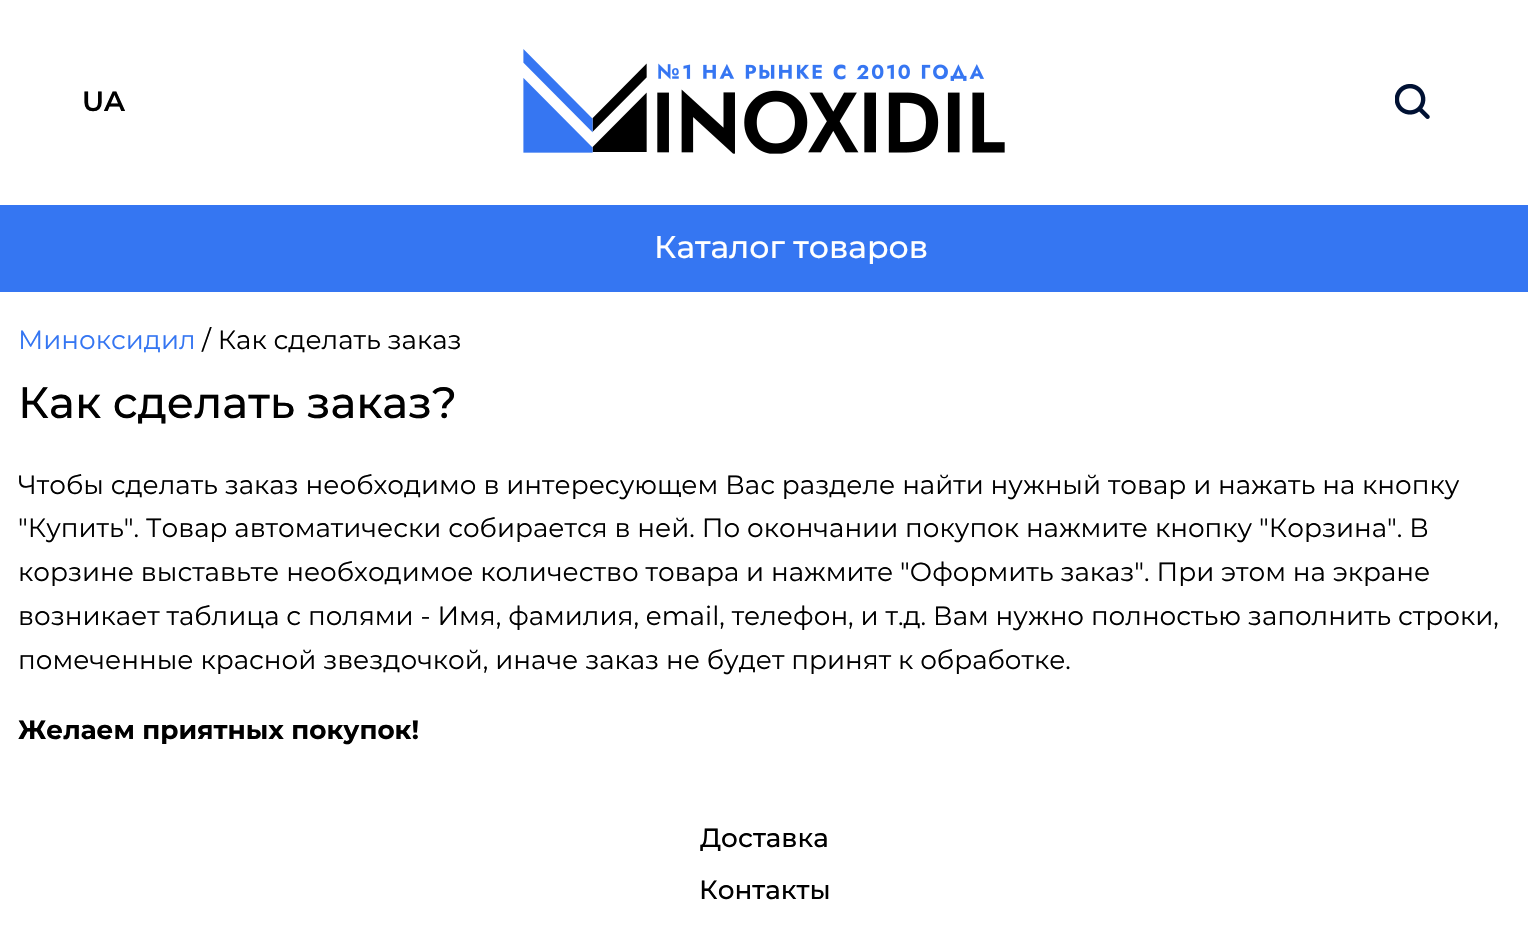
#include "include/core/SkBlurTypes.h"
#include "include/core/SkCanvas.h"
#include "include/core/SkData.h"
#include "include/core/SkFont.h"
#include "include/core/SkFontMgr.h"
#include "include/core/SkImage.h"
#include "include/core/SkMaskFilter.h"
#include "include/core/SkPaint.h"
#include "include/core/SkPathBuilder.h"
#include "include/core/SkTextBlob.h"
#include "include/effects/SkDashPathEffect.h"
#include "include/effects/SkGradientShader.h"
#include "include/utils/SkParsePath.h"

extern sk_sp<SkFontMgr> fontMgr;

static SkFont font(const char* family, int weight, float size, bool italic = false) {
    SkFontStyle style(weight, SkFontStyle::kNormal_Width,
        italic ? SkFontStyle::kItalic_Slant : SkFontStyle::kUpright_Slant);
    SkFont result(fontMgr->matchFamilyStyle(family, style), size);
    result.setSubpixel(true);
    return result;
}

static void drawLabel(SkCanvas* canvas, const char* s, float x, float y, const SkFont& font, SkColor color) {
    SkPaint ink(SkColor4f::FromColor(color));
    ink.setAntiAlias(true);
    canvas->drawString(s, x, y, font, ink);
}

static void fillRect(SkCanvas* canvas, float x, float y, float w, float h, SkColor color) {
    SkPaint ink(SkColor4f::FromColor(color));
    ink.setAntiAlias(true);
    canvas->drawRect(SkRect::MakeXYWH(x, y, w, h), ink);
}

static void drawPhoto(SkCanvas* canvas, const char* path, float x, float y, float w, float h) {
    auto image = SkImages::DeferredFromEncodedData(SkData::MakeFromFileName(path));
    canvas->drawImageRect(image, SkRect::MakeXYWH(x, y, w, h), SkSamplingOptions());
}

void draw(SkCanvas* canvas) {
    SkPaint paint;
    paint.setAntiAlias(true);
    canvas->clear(0xFFFFFFFF);
    SkFont font1 = font("Montserrat", 600, 28);
    drawLabel(canvas, "UA", 82, 111, font1, 0xFF000000);
    drawPhoto(canvas, "assets/img1.png", 523, 49, 482, 105);
    drawPhoto(canvas, "assets/img2.png", 1395, 84, 35, 35);
    fillRect(canvas, 0, 205, 1528, 87, 0xFF3576F2);
    SkFont font2 = font("Montserrat", 500, 31.5f);
    drawLabel(canvas, "Каталог товаров", 654, 258, font2, 0xFFFFFFFF);
    SkFont font3 = font("Montserrat", 400, 26.25f);
    drawLabel(canvas, "Миноксидил", 18, 349, font3, 0xFF3576F2);
    drawLabel(canvas, "/ Как сделать заказ", 202, 349, font3, 0xFF000000);
    SkFont font4 = font("Montserrat", 500, 43.75f);
    drawLabel(canvas, "Как сделать заказ?", 18, 418, font4, 0xFF000000);
    drawLabel(canvas, "Чтобы сделать заказ необходимо в интересующем Вас разделе найти нужный товар и нажать на кнопку", 18, 494, font3, 0xFF000000);
    drawLabel(canvas, "\"Купить\". Товар автоматически собирается в ней. По окончании покупок нажмите кнопку \"Корзина\". В", 18, 537, font3, 0xFF000000);
    drawLabel(canvas, "корзине выставьте необходимое количество товара и нажмите \"Оформить заказ\". При этом на экране", 18, 581, font3, 0xFF000000);
    drawLabel(canvas, "возникает таблица с полями - Имя, фамилия, email, телефон, и т.д. Вам нужно полностью заполнить строки,", 18, 625, font3, 0xFF000000);
    drawLabel(canvas, "помеченные красной звездочкой, иначе заказ не будет принят к обработке.", 18, 669, font3, 0xFF000000);
    SkFont font5 = font("Montserrat", 700, 26.25f);
    drawLabel(canvas, "Желаем приятных покупок!", 18, 739, font5, 0xFF000000);
    SkFont font6 = font("Montserrat", 500, 26.25f);
    drawLabel(canvas, "Доставка", 700, 847, font6, 0xFF000000);
    drawLabel(canvas, "Контакты", 699, 899, font6, 0xFF000000);
}
